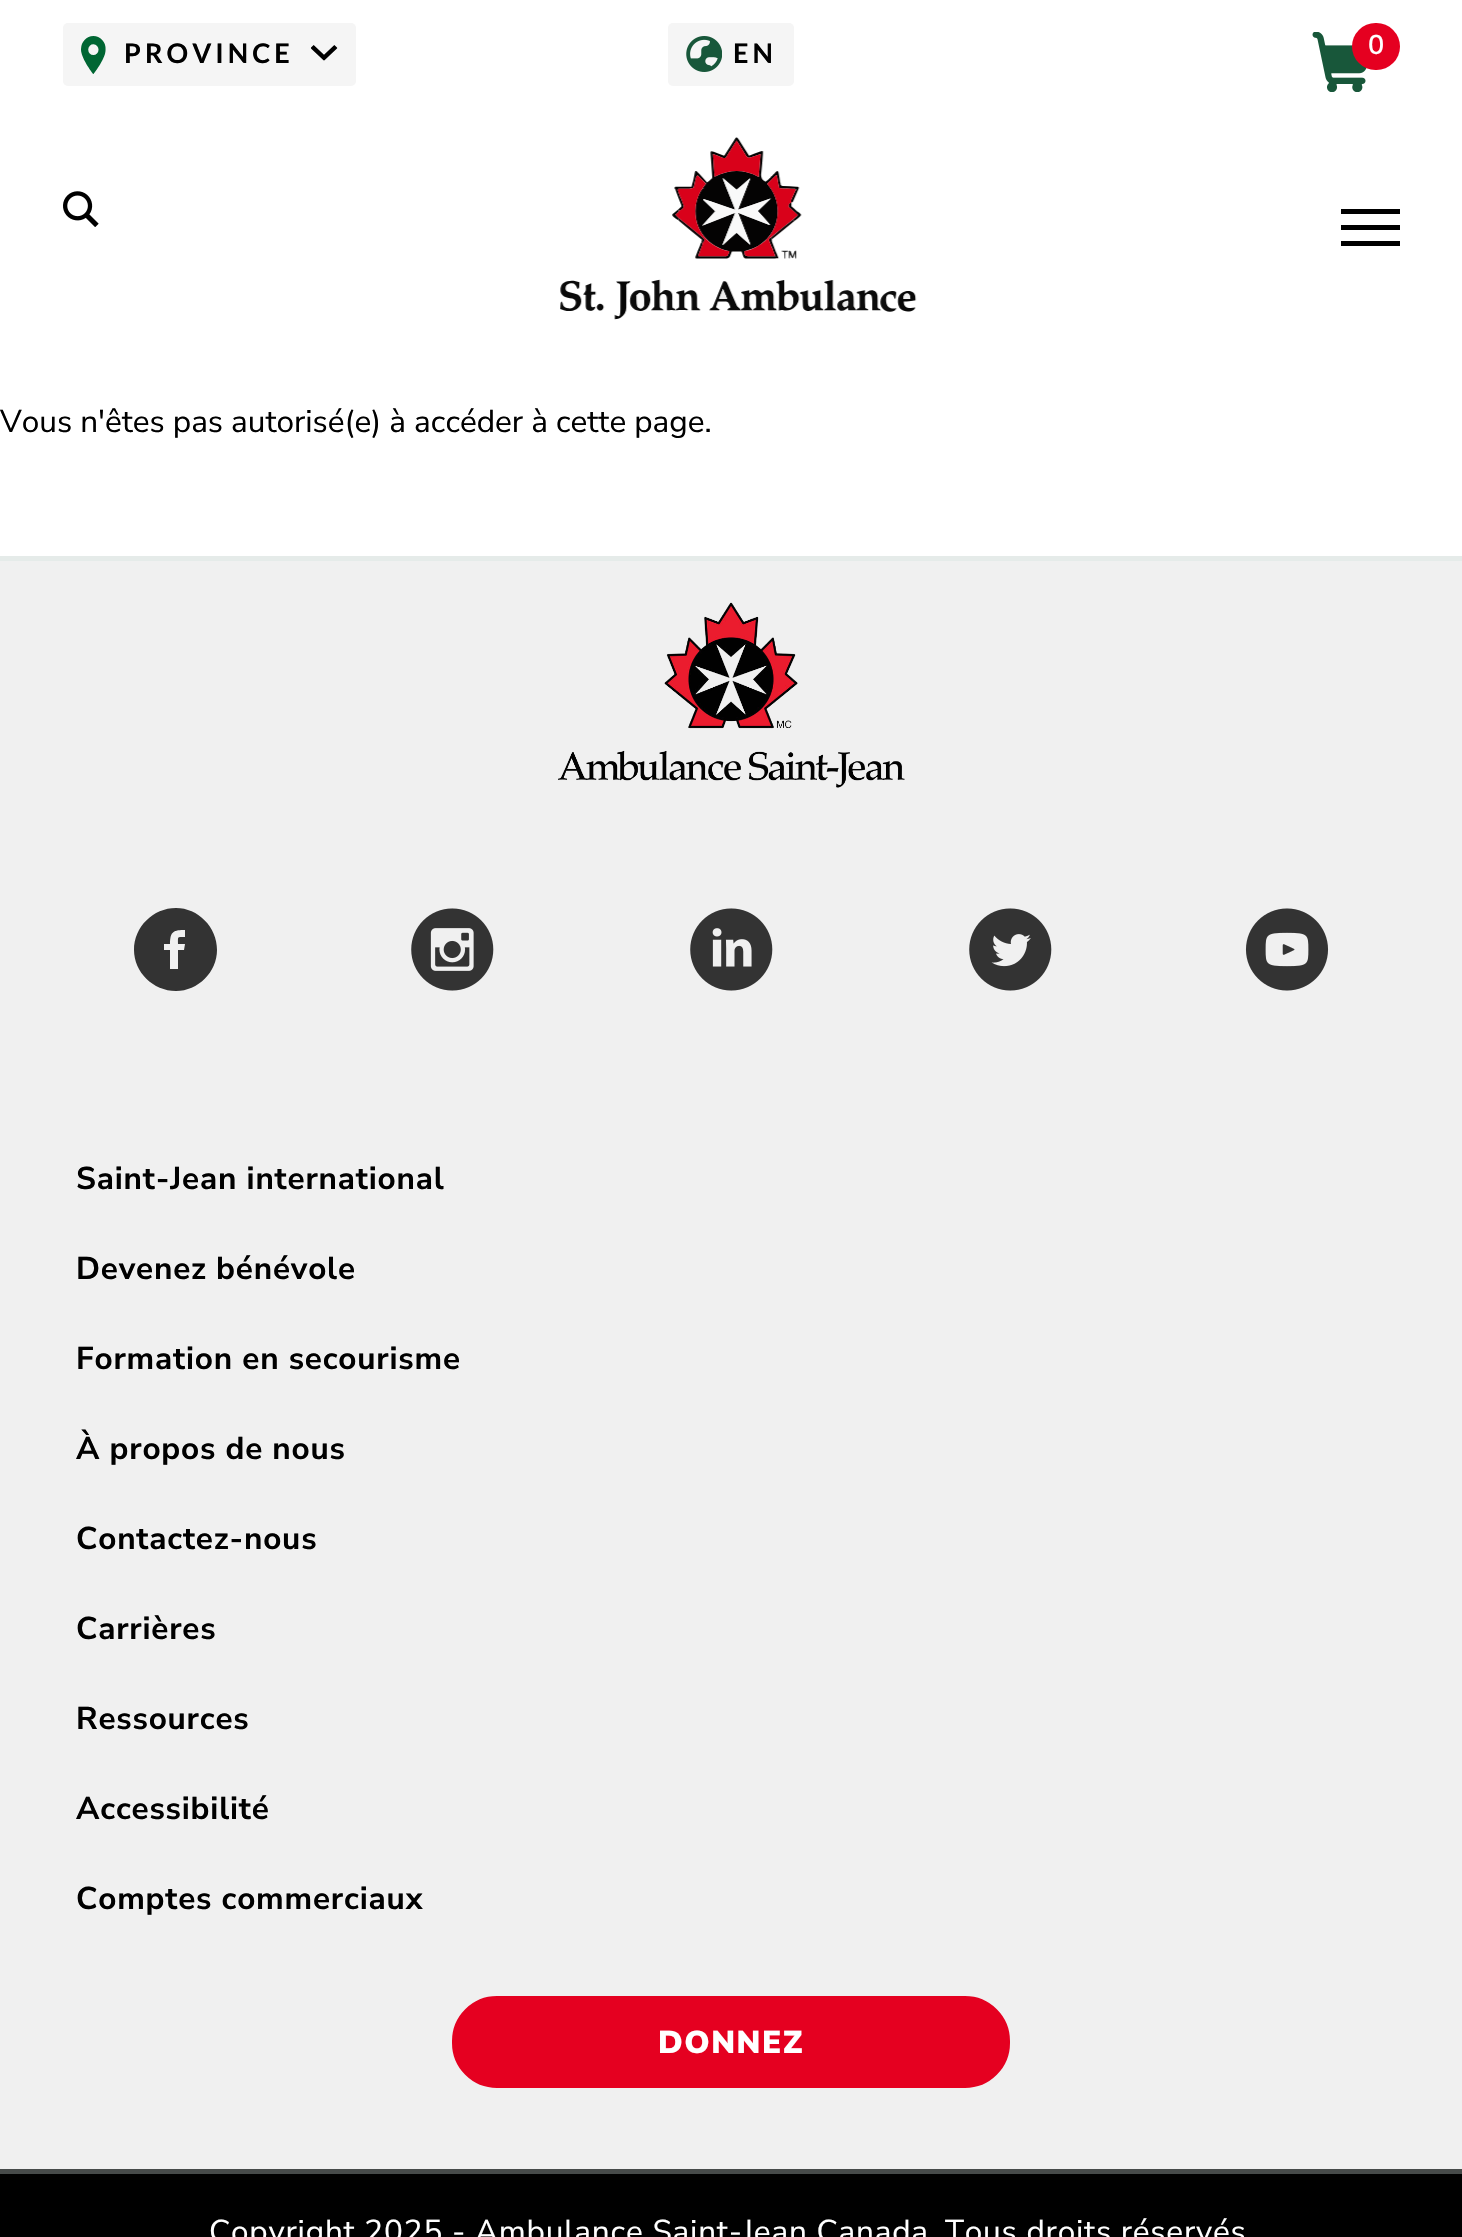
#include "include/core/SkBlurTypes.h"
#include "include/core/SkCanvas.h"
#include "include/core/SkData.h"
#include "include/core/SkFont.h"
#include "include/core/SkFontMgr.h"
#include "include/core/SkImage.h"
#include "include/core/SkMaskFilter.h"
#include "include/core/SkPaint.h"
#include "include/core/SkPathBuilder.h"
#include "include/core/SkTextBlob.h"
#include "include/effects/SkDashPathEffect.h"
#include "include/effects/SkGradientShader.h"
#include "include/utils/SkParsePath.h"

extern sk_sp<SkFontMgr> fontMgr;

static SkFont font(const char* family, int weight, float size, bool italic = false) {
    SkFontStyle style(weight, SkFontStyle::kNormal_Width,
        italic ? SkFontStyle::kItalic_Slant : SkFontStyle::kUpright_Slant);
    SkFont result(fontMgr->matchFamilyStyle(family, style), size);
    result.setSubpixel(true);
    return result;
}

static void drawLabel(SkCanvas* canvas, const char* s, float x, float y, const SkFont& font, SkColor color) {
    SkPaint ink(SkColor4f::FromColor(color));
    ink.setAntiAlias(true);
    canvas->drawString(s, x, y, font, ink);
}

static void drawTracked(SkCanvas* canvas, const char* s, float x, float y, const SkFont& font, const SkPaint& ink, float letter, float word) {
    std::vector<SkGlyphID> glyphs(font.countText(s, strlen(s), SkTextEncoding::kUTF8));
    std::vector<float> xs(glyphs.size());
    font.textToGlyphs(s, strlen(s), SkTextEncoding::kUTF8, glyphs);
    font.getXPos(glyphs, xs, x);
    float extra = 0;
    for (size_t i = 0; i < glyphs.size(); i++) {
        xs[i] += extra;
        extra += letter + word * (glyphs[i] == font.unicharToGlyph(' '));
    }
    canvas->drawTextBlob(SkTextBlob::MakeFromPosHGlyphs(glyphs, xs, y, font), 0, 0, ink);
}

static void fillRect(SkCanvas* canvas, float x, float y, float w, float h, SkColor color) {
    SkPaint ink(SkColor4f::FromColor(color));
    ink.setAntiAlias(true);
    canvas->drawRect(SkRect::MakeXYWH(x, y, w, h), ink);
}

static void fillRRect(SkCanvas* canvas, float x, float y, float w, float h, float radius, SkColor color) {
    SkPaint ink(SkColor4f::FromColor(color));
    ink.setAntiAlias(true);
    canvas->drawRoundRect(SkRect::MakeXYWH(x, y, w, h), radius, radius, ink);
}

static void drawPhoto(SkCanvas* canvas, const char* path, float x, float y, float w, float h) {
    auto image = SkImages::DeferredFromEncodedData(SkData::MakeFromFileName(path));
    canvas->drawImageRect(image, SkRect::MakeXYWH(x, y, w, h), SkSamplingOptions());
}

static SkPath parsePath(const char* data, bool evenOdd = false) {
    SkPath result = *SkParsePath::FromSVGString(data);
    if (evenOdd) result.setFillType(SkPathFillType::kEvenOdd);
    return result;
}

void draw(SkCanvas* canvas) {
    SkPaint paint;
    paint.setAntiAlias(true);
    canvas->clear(0xFFFFFFFF);
    fillRRect(canvas, 63, 23, 293, 63, 5, 0xFFF5F5F5);
    drawPhoto(canvas, "assets/img1.png", 81, 36, 25, 38);
    SkFont font1 = font("Lato", 700, 27);
    paint.setColor(0xFF000000);
    drawTracked(canvas, "PROVINCE", 124, 63, font1, paint, 4, 0);
    drawPhoto(canvas, "assets/img2.png", 311, 45, 27, 16);
    drawPhoto(canvas, "assets/img3.png", 1312, 32, 55, 60);
    fillRRect(canvas, 1352, 23, 48, 47, 23.5f, 0xFFE50020);
    SkFont font2 = font("Nunito Sans", 600, 27);
    drawLabel(canvas, "0", 1368, 54, font2, 0xFFFFFFFF);
    fillRRect(canvas, 668, 23, 126, 63, 5, 0xFFF5F5F5);
    drawPhoto(canvas, "assets/img4.png", 686, 36, 36, 36);
    drawTracked(canvas, "EN", 733, 63, font1, paint, 4, 0);
    drawPhoto(canvas, "assets/img5.png", 63, 191, 36, 36);
    drawPhoto(canvas, "assets/img6.png", 560, 137, 357, 183);
    fillRect(canvas, 1341, 209, 59, 5, 0xFF000000);
    fillRect(canvas, 1341, 225, 59, 5, 0xFF000000);
    fillRect(canvas, 1341, 241, 59, 5, 0xFF000000);
    SkFont font3 = font("Nunito Sans", 400, 31.5f);
    drawLabel(canvas, "Vous n'êtes pas autorisé(e) à accéder à cette page.", 0, 432, font3, 0xFF000000);
    fillRect(canvas, 0, 561, 1462, 1608, 0xFFF0F0F0);
    fillRect(canvas, 0, 556, 1462, 5, 0xFFE5EBE9);
    fillRect(canvas, 0, 2169, 1462, 5, 0xFF474B4A);
    drawPhoto(canvas, "assets/img7.png", 558, 602, 347, 186);
    paint.setColor(0xFF333333);
    canvas->drawPath(parsePath("M176 908C153 908 134 927 134 950C134 972 153 991 176 991C198 991 217 972 217 950C217 927 198 908 176 908ZM185 937C177 937 178 936 178 944H185L184 950H178V969H170V950H164V944H170C170 931 174 930 185 930Z"), paint);
    drawPhoto(canvas, "assets/img8.png", 411, 908, 83, 83);
    drawPhoto(canvas, "assets/img9.png", 690, 908, 83, 83);
    drawPhoto(canvas, "assets/img10.png", 969, 908, 83, 83);
    drawPhoto(canvas, "assets/img11.png", 1245, 908, 84, 83);
    SkFont font4 = font("Nunito Sans", 700, 31.5f);
    paint.setColor(0xFF000000);
    drawTracked(canvas, "Saint-Jean international", 76, 1189, font4, paint, 0.8f, 0);
    drawTracked(canvas, "Devenez bénévole", 76, 1279, font4, paint, 0.8f, 0);
    drawTracked(canvas, "Formation en secourisme", 76, 1369, font4, paint, 0.8f, 0);
    drawTracked(canvas, "À propos de nous", 76, 1459, font4, paint, 0.8f, 0);
    drawTracked(canvas, "Contactez-nous", 76, 1549, font4, paint, 0.8f, 0);
    drawTracked(canvas, "Carrières", 76, 1639, font4, paint, 0.8f, 0);
    drawTracked(canvas, "Ressources", 76, 1729, font4, paint, 0.8f, 0);
    drawTracked(canvas, "Accessibilité", 76, 1819, font4, paint, 0.8f, 0);
    drawTracked(canvas, "Comptes commerciaux", 76, 1909, font4, paint, 0.8f, 0);
    paint.setColor(0xFFE50020);
    canvas->drawRoundRect(SkRect::MakeXYWH(454.5f, 1998.5f, 553, 87), 42.5f, 42.5f, paint);
    paint.setStroke(true);
    paint.setStrokeWidth(5);
    canvas->drawRoundRect(SkRect::MakeXYWH(454.5f, 1998.5f, 553, 87), 42.5f, 42.5f, paint);
    SkFont font5 = font("Nunito Sans", 900, 31.5f);
    paint.setStroke(false);
    paint.setColor(0xFFFFFFFF);
    drawTracked(canvas, "DONNEZ", 658, 2053, font5, paint, 1.5f, 0);
    fillRect(canvas, 0, 2174, 1462, 63, 0xFF000000);
    drawTracked(canvas, "Copyright 2025 - Ambulance Saint-Jean Canada", 209, 2242, font3, paint, 0.8f, 0);
    drawTracked(canvas, "Tous droits réservés", 945, 2242, font3, paint, 0.8f, 0);
}
